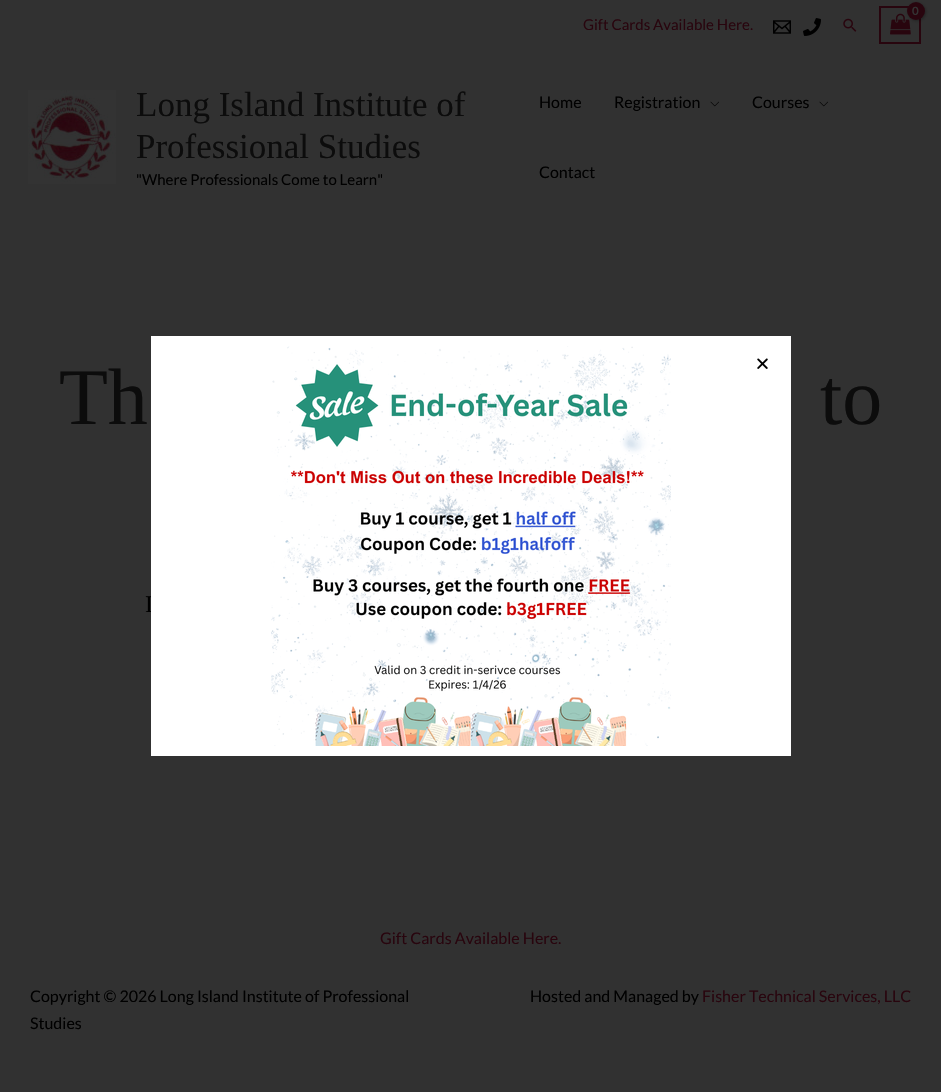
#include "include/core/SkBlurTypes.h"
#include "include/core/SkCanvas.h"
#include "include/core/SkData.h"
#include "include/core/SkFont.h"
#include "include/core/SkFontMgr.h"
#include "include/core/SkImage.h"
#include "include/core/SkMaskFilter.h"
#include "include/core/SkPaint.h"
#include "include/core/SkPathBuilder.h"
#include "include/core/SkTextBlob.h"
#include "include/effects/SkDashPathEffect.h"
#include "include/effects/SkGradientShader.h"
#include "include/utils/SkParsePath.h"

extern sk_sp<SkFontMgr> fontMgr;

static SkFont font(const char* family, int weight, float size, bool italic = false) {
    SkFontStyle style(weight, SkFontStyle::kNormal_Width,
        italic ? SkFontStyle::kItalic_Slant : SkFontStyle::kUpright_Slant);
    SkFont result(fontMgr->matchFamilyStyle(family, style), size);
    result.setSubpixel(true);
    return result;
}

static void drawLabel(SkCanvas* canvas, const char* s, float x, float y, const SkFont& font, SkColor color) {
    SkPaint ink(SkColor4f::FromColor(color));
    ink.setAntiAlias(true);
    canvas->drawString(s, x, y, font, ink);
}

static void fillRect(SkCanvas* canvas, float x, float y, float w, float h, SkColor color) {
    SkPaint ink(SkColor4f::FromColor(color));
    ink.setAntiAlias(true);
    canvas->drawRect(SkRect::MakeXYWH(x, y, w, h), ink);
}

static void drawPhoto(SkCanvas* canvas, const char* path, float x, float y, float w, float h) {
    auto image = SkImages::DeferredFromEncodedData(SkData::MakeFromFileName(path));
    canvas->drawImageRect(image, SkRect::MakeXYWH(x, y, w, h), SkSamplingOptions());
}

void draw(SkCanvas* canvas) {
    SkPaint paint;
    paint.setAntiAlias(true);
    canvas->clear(0xFF313131);
    paint.setStroke(true);
    paint.setStrokeWidth(2);
    paint.setColor(0xFF28050E);
    canvas->drawRect(SkRect::MakeXYWH(880, 7, 40, 36), paint);
    drawPhoto(canvas, "assets/img1.png", 890, 13, 21, 22);
    paint.setStroke(false);
    paint.setColor(0x4D000000);
    paint.setMaskFilter(SkMaskFilter::MakeBlur(kNormal_SkBlurStyle, 1.5f));
    canvas->drawRoundRect(SkRect::MakeXYWH(908, 3, 18, 18), 9, 9, paint);
    paint.setMaskFilter(nullptr);
    paint.setColor(0xFF28050E);
    canvas->drawCircle(916, 11, 9, paint);
    SkFont font1 = font("Lato", 700, 11);
    drawLabel(canvas, "0", 912, 15, font1, 0xFF333333);
    SkFont font2 = font("Lato", 400, 15);
    drawLabel(canvas, "Gift Cards Available Here.", 583, 30, font2, 0xFF28050E);
    drawPhoto(canvas, "assets/img2.png", 773, 20, 18, 14);
    drawPhoto(canvas, "assets/img3.png", 803, 18, 18, 18);
    drawPhoto(canvas, "assets/img4.png", 843, 18, 14, 14);
    drawPhoto(canvas, "assets/img5.png", 28, 90, 88, 94);
    SkFont font3 = font("Liberation Serif", 400, 35);
    drawLabel(canvas, "Long Island Institute of", 136, 116, font3, 0xFF0C0C0C);
    drawLabel(canvas, "Professional Studies", 136, 158, font3, 0xFF0C0C0C);
    drawLabel(canvas, "\"Where Professionals Come to Learn\"", 136, 185, font2, 0xFF000000);
    SkFont font4 = font("Lato", 400, 16);
    drawLabel(canvas, "Home", 539, 108, font4, 0xFF000000);
    drawLabel(canvas, "Registration", 614, 108, font4, 0xFF000000);
    drawPhoto(canvas, "assets/img6.png", 710, 101, 9, 6);
    drawLabel(canvas, "Courses", 752, 108, font4, 0xFF000000);
    drawPhoto(canvas, "assets/img6.png", 819, 101, 9, 6);
    drawLabel(canvas, "Contact", 539, 178, font4, 0xFF000000);
    SkFont font5 = font("Liberation Serif", 400, 80);
    drawLabel(canvas, "Th", 59, 424, font5, 0xFF0C0C0C);
    drawLabel(canvas, "to", 820, 424, font5, 0xFF0C0C0C);
    SkFont font6 = font("Liberation Serif", 400, 24);
    drawLabel(canvas, "I", 145, 612, font6, 0xFF000000);
    drawLabel(canvas, "Gift Cards Available Here.", 380, 944, font4, 0xFF28050E);
    drawLabel(canvas, "Copyright © 2026 Long Island Institute of Professional", 30, 1002, font4, 0xFF000000);
    drawLabel(canvas, "Studies", 30, 1029, font4, 0xFF000000);
    drawLabel(canvas, "Hosted and Managed by", 530, 1002, font4, 0xFF000000);
    drawLabel(canvas, "Fisher Technical Services, LLC", 702, 1002, font4, 0xFF28050E);
    fillRect(canvas, 151, 336, 640, 420, 0xFFFFFFFF);
    drawPhoto(canvas, "assets/img7.png", 271, 346, 400, 400);
    drawPhoto(canvas, "assets/img8.png", 757, 358, 11, 11);
}
